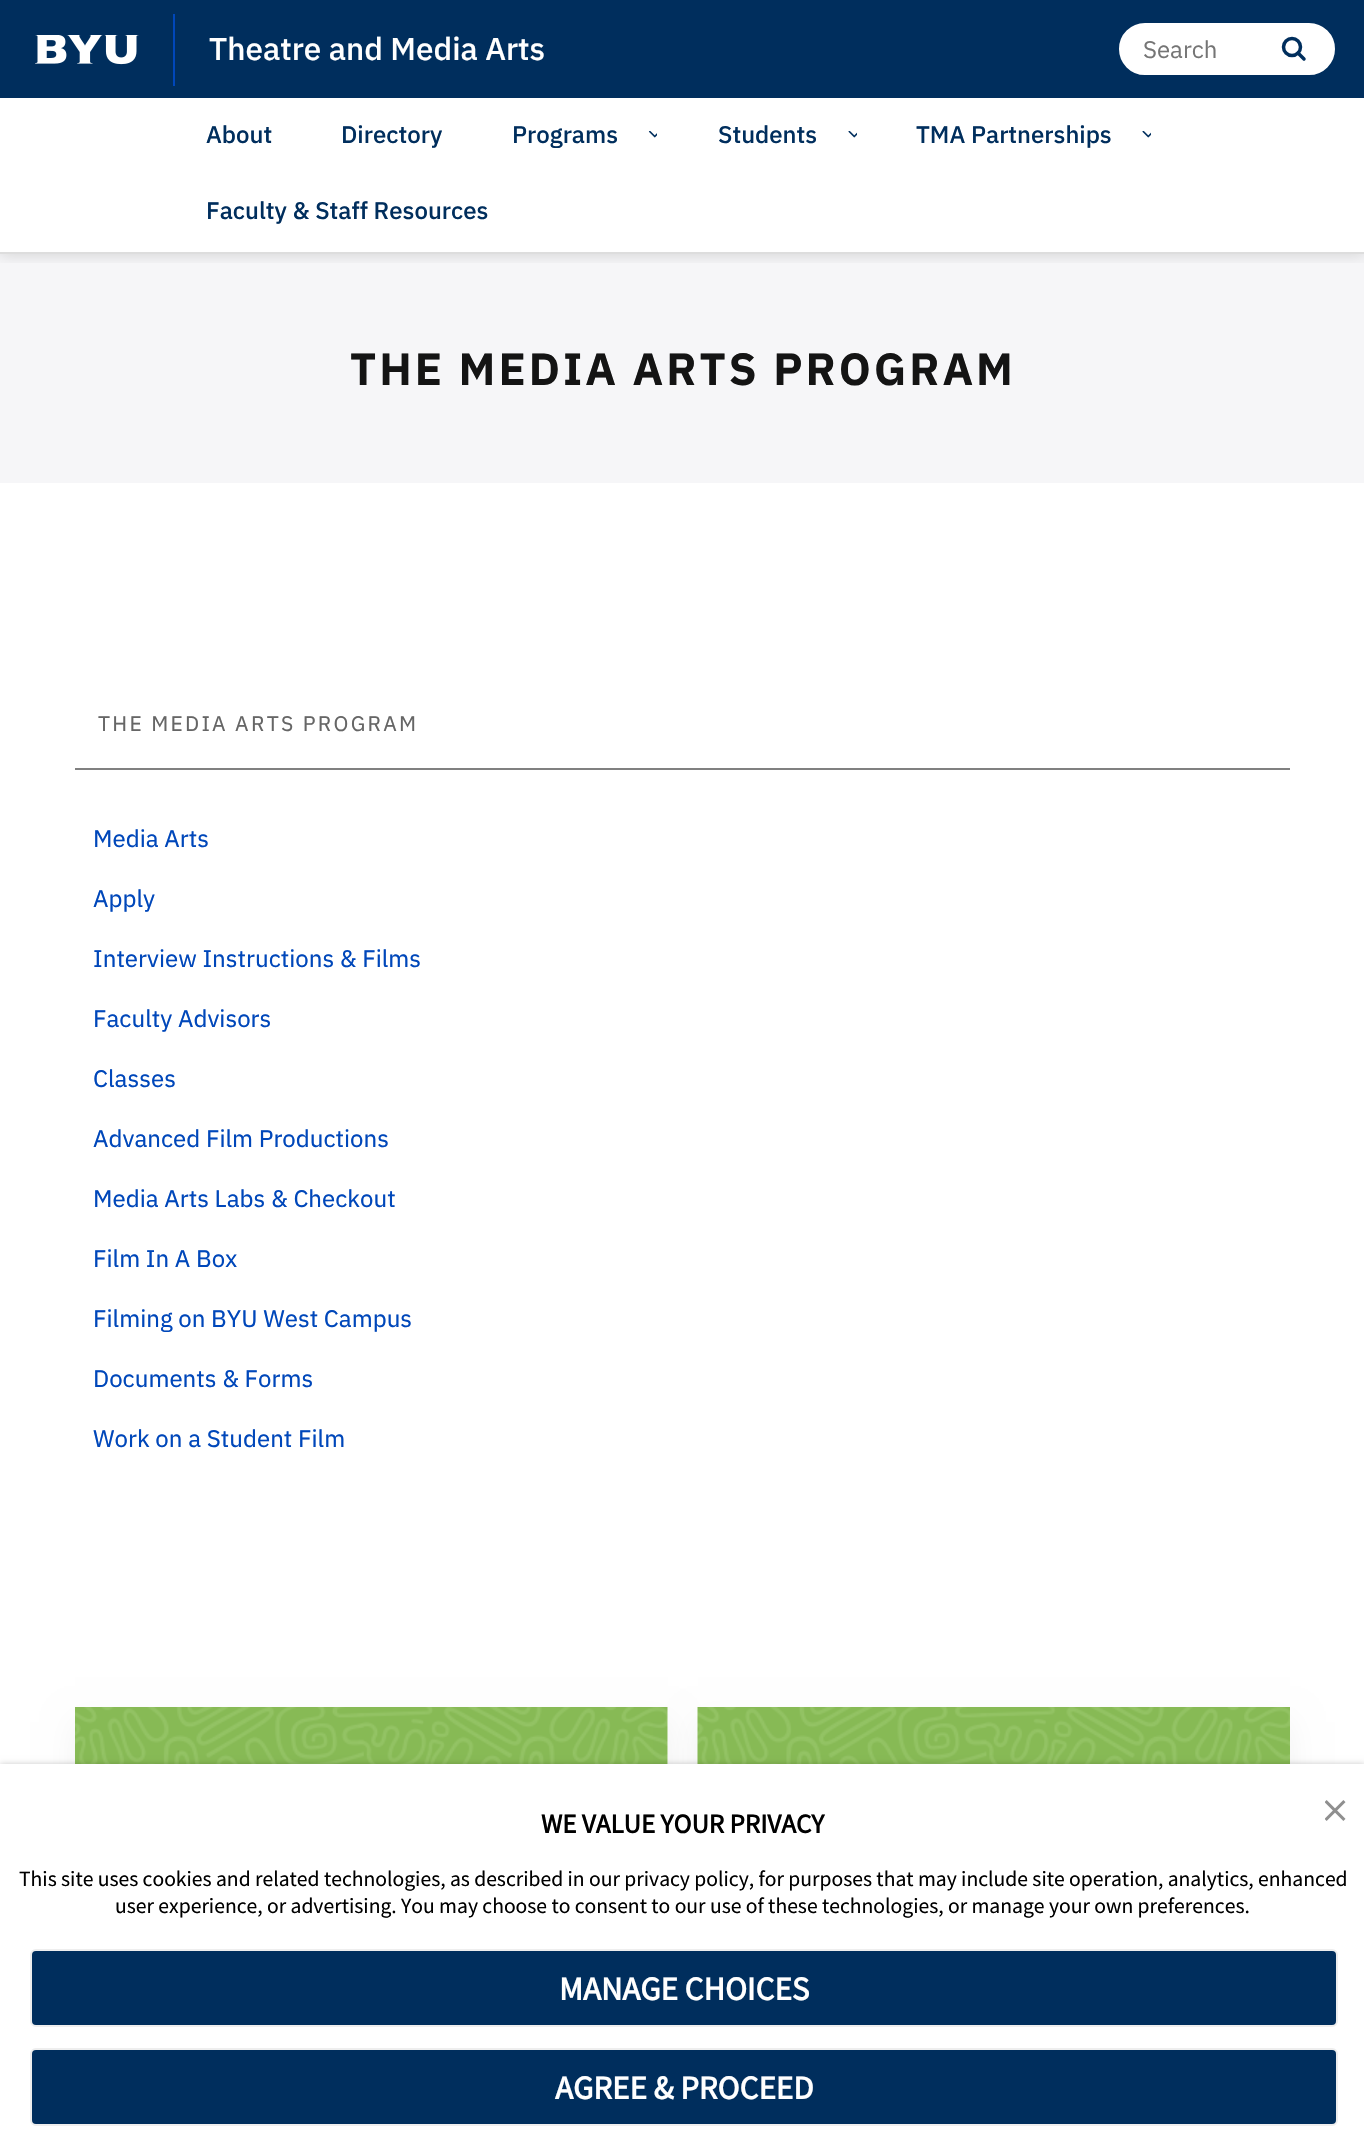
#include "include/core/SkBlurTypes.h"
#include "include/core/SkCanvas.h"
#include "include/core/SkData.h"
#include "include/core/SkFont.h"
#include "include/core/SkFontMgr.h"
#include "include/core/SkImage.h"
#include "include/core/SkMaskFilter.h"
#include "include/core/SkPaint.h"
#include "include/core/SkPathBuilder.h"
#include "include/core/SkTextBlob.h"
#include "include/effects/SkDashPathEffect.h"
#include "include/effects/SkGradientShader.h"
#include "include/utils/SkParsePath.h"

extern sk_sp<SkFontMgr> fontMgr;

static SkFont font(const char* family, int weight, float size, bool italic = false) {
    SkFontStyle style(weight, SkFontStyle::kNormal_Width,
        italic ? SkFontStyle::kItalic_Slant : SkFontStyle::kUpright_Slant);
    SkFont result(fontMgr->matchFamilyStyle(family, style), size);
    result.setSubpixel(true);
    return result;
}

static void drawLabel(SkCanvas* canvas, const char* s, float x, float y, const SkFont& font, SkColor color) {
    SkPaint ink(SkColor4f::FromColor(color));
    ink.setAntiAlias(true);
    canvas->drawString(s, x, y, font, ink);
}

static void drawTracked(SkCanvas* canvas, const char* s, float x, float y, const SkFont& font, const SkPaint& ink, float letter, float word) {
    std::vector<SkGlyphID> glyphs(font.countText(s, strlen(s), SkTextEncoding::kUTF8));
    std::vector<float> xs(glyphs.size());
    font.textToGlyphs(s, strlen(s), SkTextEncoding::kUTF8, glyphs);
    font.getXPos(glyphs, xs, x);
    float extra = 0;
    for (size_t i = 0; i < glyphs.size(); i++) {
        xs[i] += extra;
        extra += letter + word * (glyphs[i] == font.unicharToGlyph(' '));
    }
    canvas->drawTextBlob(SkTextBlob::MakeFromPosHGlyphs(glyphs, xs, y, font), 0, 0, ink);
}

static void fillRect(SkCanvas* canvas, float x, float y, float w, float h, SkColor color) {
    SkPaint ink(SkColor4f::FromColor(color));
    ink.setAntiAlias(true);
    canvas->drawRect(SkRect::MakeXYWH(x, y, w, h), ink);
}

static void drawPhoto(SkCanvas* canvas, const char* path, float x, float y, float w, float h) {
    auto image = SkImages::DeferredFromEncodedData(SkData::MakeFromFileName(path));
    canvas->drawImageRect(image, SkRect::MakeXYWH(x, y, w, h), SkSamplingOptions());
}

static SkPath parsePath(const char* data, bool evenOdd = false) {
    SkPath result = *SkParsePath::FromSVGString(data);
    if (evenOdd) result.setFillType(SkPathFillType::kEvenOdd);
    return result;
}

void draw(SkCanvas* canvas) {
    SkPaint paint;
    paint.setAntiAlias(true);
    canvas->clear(0xFFFFFFFF);
    fillRect(canvas, 0, 254, 1364, 229, 0xFFF6F6F8);
    canvas->save();
    canvas->clipRect(SkRect::MakeXYWH(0, 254, 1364, 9));
    paint.setColor(0x29000000);
    paint.setMaskFilter(SkMaskFilter::MakeBlur(kNormal_SkBlurStyle, 7.5f));
    canvas->drawRect(SkRect::MakeXYWH(0, 0, 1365, 254), paint);
    paint.setMaskFilter(nullptr);
    canvas->restore();
    fillRect(canvas, 0, 252, 1364, 2, 0xFFDDDDDD);
    fillRect(canvas, 0, 0, 1364, 98, 0xFF002E5D);
    drawPhoto(canvas, "assets/img1.png", 35, 35, 104, 30);
    fillRect(canvas, 173, 14, 2, 72, 0xFF0047BA);
    SkFont font1 = font("IBM Plex Sans", 500, 31.5f);
    drawLabel(canvas, "Theatre and Media Arts", 209, 60, font1, 0xFFFFFFFF);
    paint.setColor(0xFFFFFFFF);
    canvas->drawRoundRect(SkRect::MakeXYWH(1120, 24, 214, 50), 25, 25, paint);
    paint.setStroke(true);
    paint.setStrokeWidth(2);
    canvas->drawRoundRect(SkRect::MakeXYWH(1120, 24, 214, 50), 25, 25, paint);
    SkFont font2 = font("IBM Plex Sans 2", 400, 24);
    drawLabel(canvas, "Search", 1143, 58, font2, 0xFF757575);
    paint.setStrokeWidth(3.5f);
    paint.setColor(0xFF002E5D);
    canvas->drawCircle(1292, 47, 8.5f, paint);
    paint.setStrokeCap(SkPaint::kRound_Cap);
    canvas->drawPath(parsePath("M1298 53L1304 59"), paint);
    SkFont font3 = font("IBM Plex Sans", 500, 24);
    drawLabel(canvas, "About", 206, 143, font3, 0xFF002E5D);
    drawLabel(canvas, "Directory", 341, 143, font3, 0xFF002E5D);
    drawLabel(canvas, "Programs", 512, 143, font3, 0xFF002E5D);
    drawPhoto(canvas, "assets/img2.png", 648, 131, 9, 7);
    drawLabel(canvas, "Students", 718, 143, font3, 0xFF002E5D);
    drawPhoto(canvas, "assets/img3.png", 848, 131, 9, 7);
    drawLabel(canvas, "TMA Partnerships", 916, 143, font3, 0xFF002E5D);
    drawPhoto(canvas, "assets/img3.png", 1142, 131, 9, 7);
    drawLabel(canvas, "Faculty & Staff Resources", 206, 219, font3, 0xFF002E5D);
    SkFont font4 = font("IBM Plex Sans", 700, 45);
    paint.setStroke(false);
    paint.setColor(0xFF141414);
    drawTracked(canvas, "THE MEDIA ARTS PROGRAM", 350, 385, font4, paint, 3, 0);
    SkFont font5 = font("IBM Plex Sans", 400, 21);
    paint.setColor(0xFF666666);
    drawTracked(canvas, "THE MEDIA ARTS PROGRAM", 98, 731, font5, paint, 2.25f, 0);
    fillRect(canvas, 75, 768, 1215, 2, 0xFF808080);
    SkFont font6 = font("IBM Plex Sans", 400, 24);
    drawLabel(canvas, "Media Arts", 93, 847, font6, 0xFF0047BA);
    drawLabel(canvas, "Apply", 93, 907, font6, 0xFF0047BA);
    drawLabel(canvas, "Interview Instructions & Films", 93, 967, font6, 0xFF0047BA);
    drawLabel(canvas, "Faculty Advisors", 93, 1027, font6, 0xFF0047BA);
    drawLabel(canvas, "Classes", 93, 1087, font6, 0xFF0047BA);
    drawLabel(canvas, "Advanced Film Productions", 93, 1147, font6, 0xFF0047BA);
    drawLabel(canvas, "Media Arts Labs & Checkout", 93, 1207, font6, 0xFF0047BA);
    drawLabel(canvas, "Film In A Box", 93, 1267, font6, 0xFF0047BA);
    drawLabel(canvas, "Filming on BYU West Campus", 93, 1327, font6, 0xFF0047BA);
    drawLabel(canvas, "Documents & Forms", 93, 1387, font6, 0xFF0047BA);
    drawLabel(canvas, "Work on a Student Film", 93, 1447, font6, 0xFF0047BA);
    paint.setColor(0x0D000000);
    paint.setMaskFilter(SkMaskFilter::MakeBlur(kNormal_SkBlurStyle, 15));
    canvas->drawRect(SkRect::MakeXYWH(75, 1722, 593, 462), paint);
    paint.setMaskFilter(nullptr);
    fillRect(canvas, 667, 1718, 1, 46, 0xFFFFFFFF);
    drawPhoto(canvas, "assets/img4.png", 75, 1707, 593, 57);
    paint.setMaskFilter(SkMaskFilter::MakeBlur(kNormal_SkBlurStyle, 15));
    canvas->drawRect(SkRect::MakeXYWH(698, 1722, 592, 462), paint);
    paint.setMaskFilter(nullptr);
    drawPhoto(canvas, "assets/img5.png", 697, 1707, 593, 57);
    paint.setColor(0x33000000);
    paint.setMaskFilter(SkMaskFilter::MakeBlur(kNormal_SkBlurStyle, 3));
    canvas->drawRect(SkRect::MakeXYWH(0, 1764, 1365, 375), paint);
    paint.setMaskFilter(nullptr);
    fillRect(canvas, 0, 1764, 1364, 375, 0xFFFFFFFF);
    drawPhoto(canvas, "assets/img6.png", 1325, 1800, 21, 21);
    SkFont font7 = font("Source Sans Pro", 700, 27);
    drawLabel(canvas, "WE VALUE YOUR PRIVACY", 541, 1833, font7, 0xFF000000);
    SkFont font8 = font("Source Sans Pro", 400, 21.6f);
    drawLabel(canvas, "This site uses cookies and related technologies, as described in our privacy policy, for purposes that may include site operation, analytics, enhanced", 19, 1886, font8, 0xFF000000);
    drawLabel(canvas, "user experience, or advertising. You may choose to consent to our use of these technologies, or manage your own preferences.", 115, 1913, font8, 0xFF000000);
    paint.setColor(0xFF002E5D);
    canvas->drawRoundRect(SkRect::MakeXYWH(31, 1950, 1306, 76), 5, 5, paint);
    paint.setStroke(true);
    paint.setStrokeWidth(2);
    paint.setStrokeCap(SkPaint::kButt_Cap);
    paint.setColor(0xFFEEEEEE);
    canvas->drawRoundRect(SkRect::MakeXYWH(31, 1950, 1306, 76), 5, 5, paint);
    SkFont font9 = font("Source Sans Pro", 700, 33);
    drawLabel(canvas, "MANAGE CHOICES", 559, 2000, font9, 0xFFFFFFFF);
    paint.setStroke(false);
    paint.setColor(0xFF002E5D);
    canvas->drawRoundRect(SkRect::MakeXYWH(31, 2049, 1306, 76), 5, 5, paint);
    paint.setStroke(true);
    paint.setColor(0xFFEEEEEE);
    canvas->drawRoundRect(SkRect::MakeXYWH(31, 2049, 1306, 76), 5, 5, paint);
    drawLabel(canvas, "AGREE & PROCEED", 555, 2099, font9, 0xFFFFFFFF);
}
